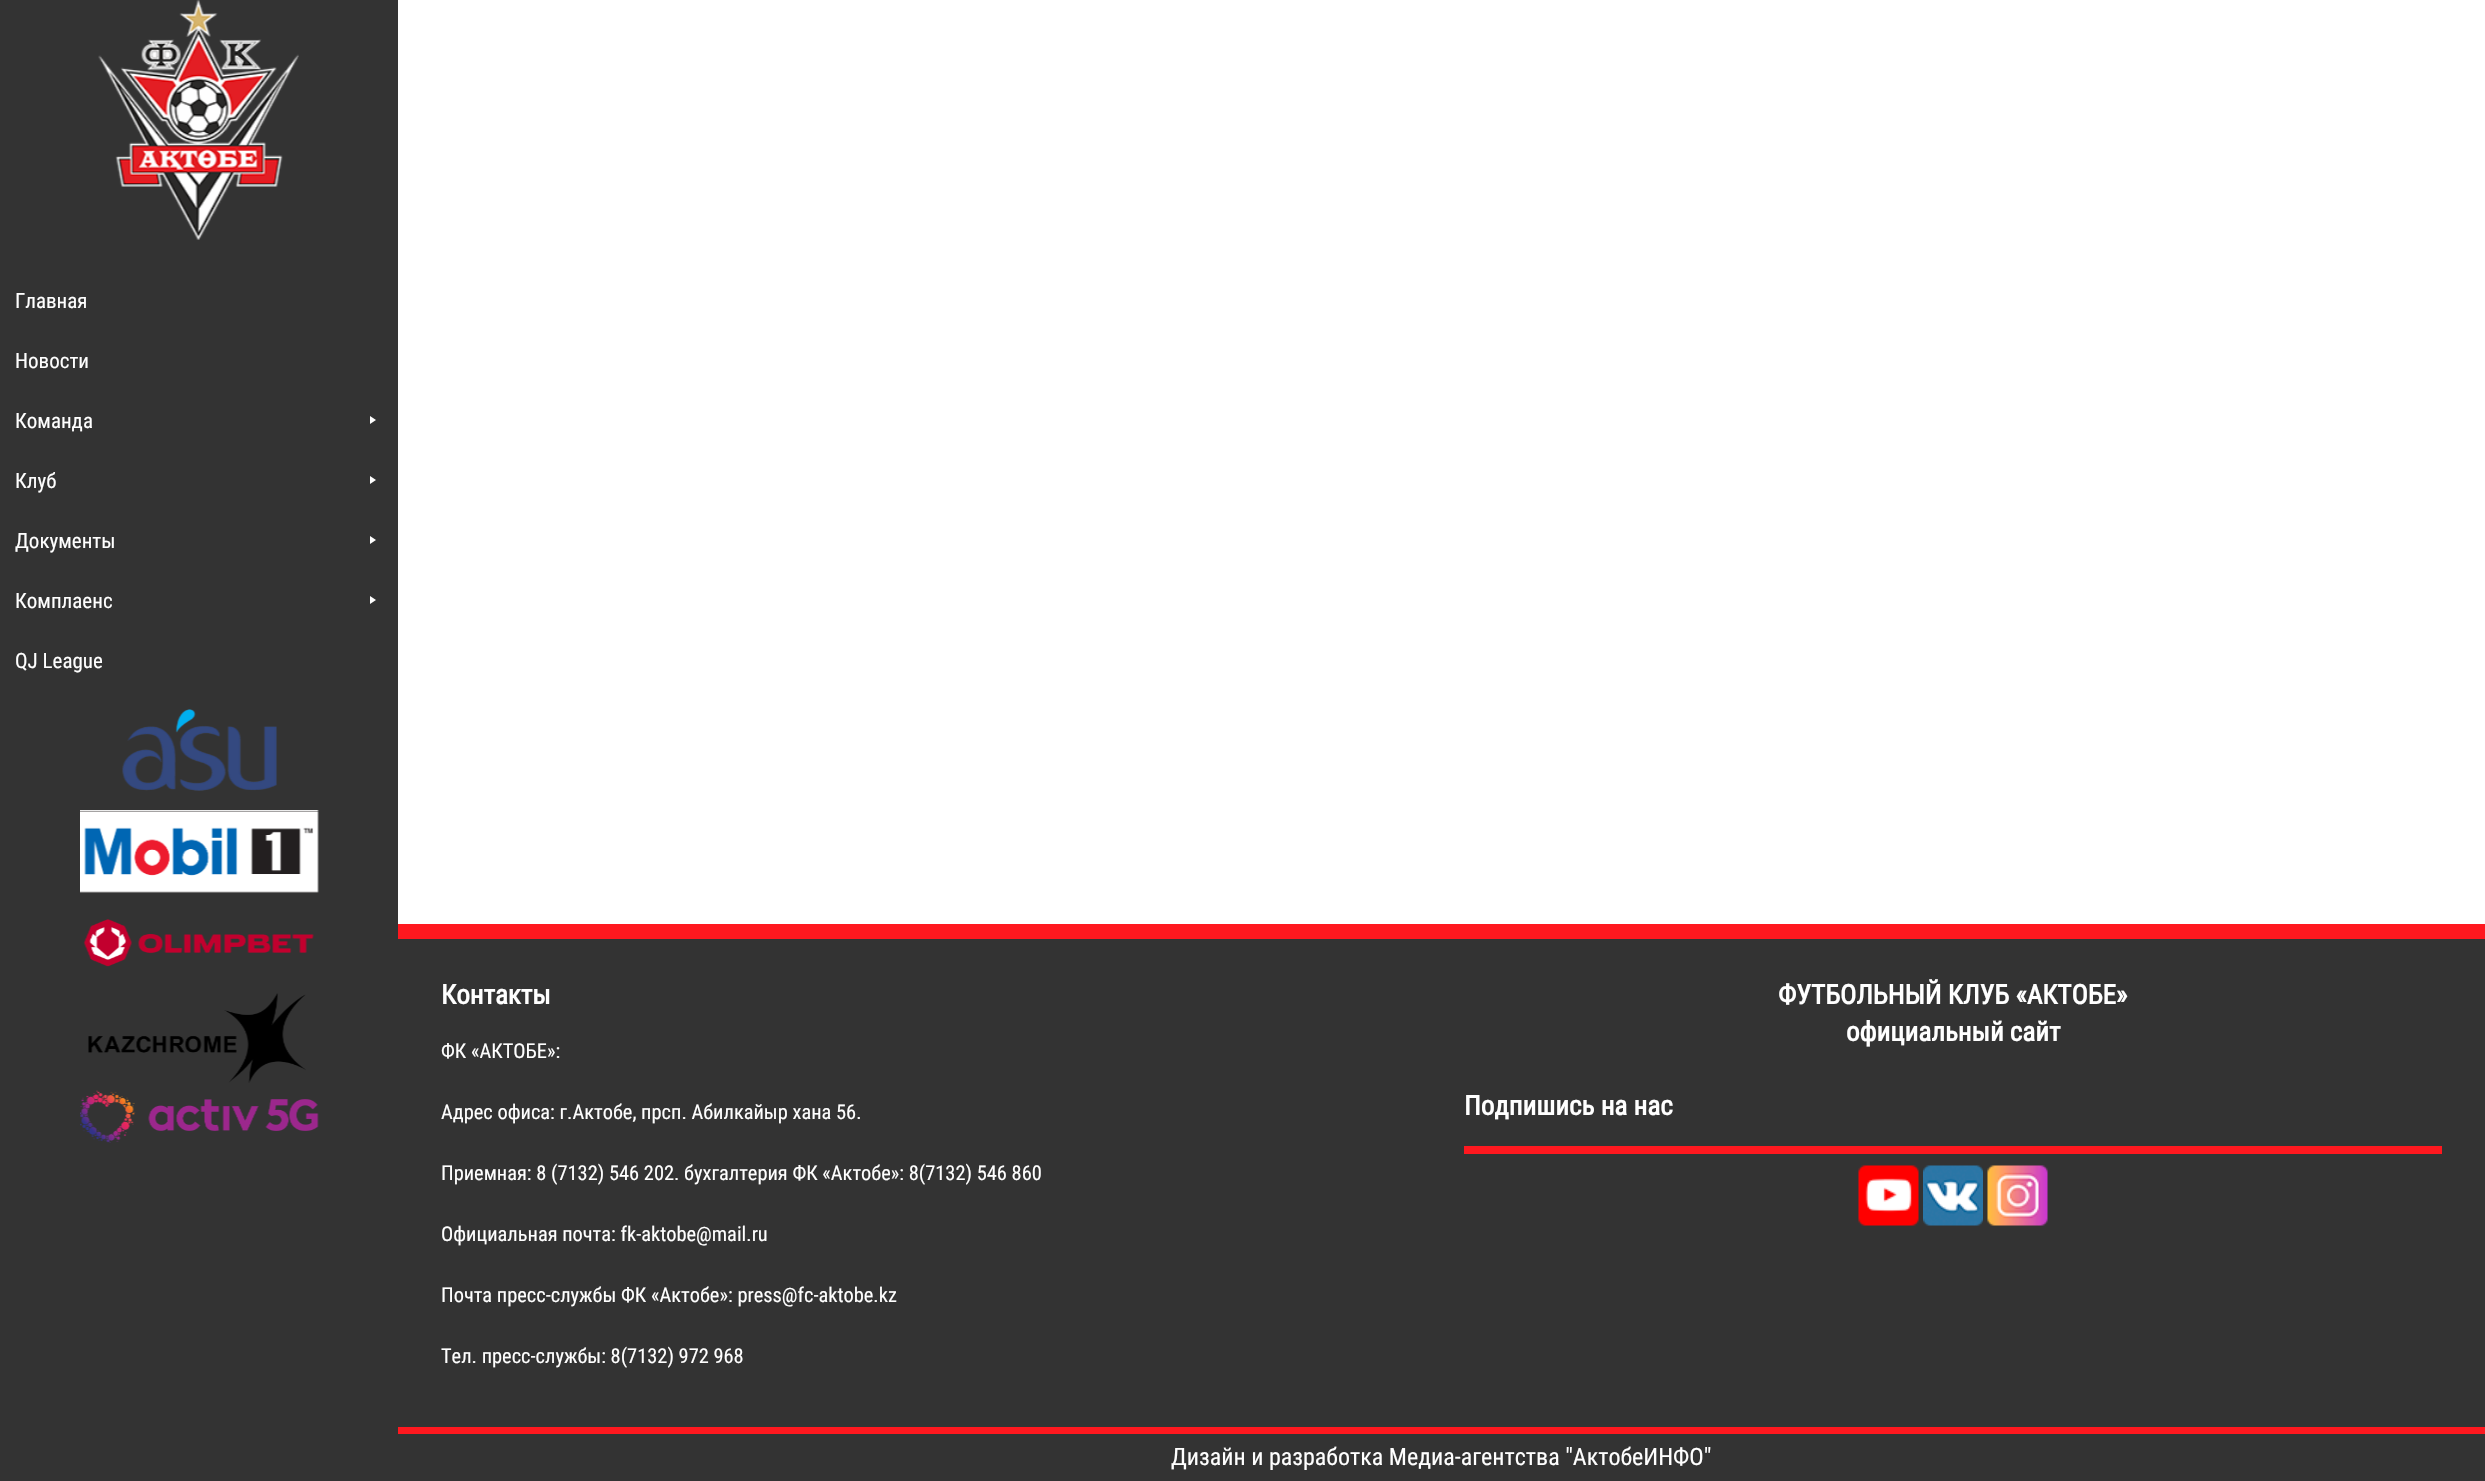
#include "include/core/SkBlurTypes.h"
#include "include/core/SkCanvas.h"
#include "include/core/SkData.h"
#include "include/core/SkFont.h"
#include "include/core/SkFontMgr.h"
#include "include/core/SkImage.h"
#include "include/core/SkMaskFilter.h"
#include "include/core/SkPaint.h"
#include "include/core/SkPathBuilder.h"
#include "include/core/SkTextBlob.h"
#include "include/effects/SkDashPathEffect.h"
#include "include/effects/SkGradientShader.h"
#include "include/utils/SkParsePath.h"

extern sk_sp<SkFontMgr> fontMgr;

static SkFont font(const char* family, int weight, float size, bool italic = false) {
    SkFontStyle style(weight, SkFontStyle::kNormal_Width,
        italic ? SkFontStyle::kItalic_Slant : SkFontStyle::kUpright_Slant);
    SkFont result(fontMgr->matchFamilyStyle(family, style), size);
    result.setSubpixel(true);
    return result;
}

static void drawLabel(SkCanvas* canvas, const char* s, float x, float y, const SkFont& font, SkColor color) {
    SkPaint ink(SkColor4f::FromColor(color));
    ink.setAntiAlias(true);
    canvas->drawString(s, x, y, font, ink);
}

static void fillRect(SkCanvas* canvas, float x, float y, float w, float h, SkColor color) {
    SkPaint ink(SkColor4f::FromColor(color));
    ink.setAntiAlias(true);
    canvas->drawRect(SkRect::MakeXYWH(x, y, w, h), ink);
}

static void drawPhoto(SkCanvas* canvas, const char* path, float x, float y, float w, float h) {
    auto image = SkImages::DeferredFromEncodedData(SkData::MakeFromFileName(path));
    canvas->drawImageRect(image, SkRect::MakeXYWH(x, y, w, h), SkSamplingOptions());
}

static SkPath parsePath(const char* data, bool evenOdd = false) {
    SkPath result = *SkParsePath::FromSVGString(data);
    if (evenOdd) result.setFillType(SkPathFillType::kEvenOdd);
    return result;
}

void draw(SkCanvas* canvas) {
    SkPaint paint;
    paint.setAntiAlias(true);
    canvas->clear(0xFFFFFFFF);
    fillRect(canvas, 0, 0, 398, 1481, 0xFF333333);
    drawPhoto(canvas, "assets/img1.png", 98, 0, 201, 240);
    SkFont font1 = font("Roboto Condensed", 400, 21);
    drawLabel(canvas, "Главная", 15, 308, font1, 0xFFFFFFFF);
    drawLabel(canvas, "Новости", 15, 368, font1, 0xFFFFFFFF);
    drawLabel(canvas, "Команда", 15, 428, font1, 0xFFFFFFFF);
    paint.setColor(0xFFFFFFFF);
    canvas->drawPath(parsePath("M370 416L376 420L370 424Z"), paint);
    drawLabel(canvas, "Клуб", 15, 488, font1, 0xFFFFFFFF);
    canvas->drawPath(parsePath("M370 476L376 480L370 484Z"), paint);
    drawLabel(canvas, "Документы", 15, 548, font1, 0xFFFFFFFF);
    canvas->drawPath(parsePath("M370 536L376 540L370 544Z"), paint);
    drawLabel(canvas, "Комплаенс", 15, 608, font1, 0xFFFFFFFF);
    canvas->drawPath(parsePath("M370 596L376 600L370 604Z"), paint);
    drawLabel(canvas, "QJ League", 15, 668, font1, 0xFFFFFFFF);
    drawPhoto(canvas, "assets/img2.png", 122, 709, 155, 82);
    drawPhoto(canvas, "assets/img3.png", 80, 810, 239, 83);
    drawPhoto(canvas, "assets/img4.png", 83, 919, 231, 48);
    drawPhoto(canvas, "assets/img5.png", 88, 993, 218, 90);
    drawPhoto(canvas, "assets/img6.png", 80, 1090, 239, 53);
    fillRect(canvas, 398, 939, 2087, 488, 0xFF333333);
    fillRect(canvas, 398, 924, 2087, 15, 0xFFFF181F);
    fillRect(canvas, 398, 1427, 2087, 7, 0xFFFF181F);
    SkFont font2 = font("Roboto Condensed", 700, 27);
    drawLabel(canvas, "Контакты", 441, 1004, font2, 0xFFFFFFFF);
    SkFont font3 = font("Roboto Condensed", 400, 20.4f);
    drawLabel(canvas, "ФК «АКТОБЕ»:", 441, 1058, font3, 0xFFFFFFFF);
    drawLabel(canvas, "Адрес офиса: г.Актобе, прсп. Абилкайыр хана 56.", 441, 1119, font3, 0xFFFFFFFF);
    drawLabel(canvas, "Приемная: 8 (7132) 546 202. бухгалтерия ФК «Актобе»: 8(7132) 546 860", 441, 1180, font3, 0xFFFFFFFF);
    drawLabel(canvas, "Официальная почта: fk-aktobe@mail.ru", 441, 1241, font3, 0xFFFFFFFF);
    drawLabel(canvas, "Почта пресс-службы ФК «Актобе»: press@fc-aktobe.kz", 441, 1302, font3, 0xFFFFFFFF);
    drawLabel(canvas, "Тел. пресс-службы: 8(7132) 972 968", 441, 1363, font3, 0xFFFFFFFF);
    drawLabel(canvas, "ФУТБОЛЬНЫЙ КЛУБ «АКТОБЕ»", 1778, 1004, font2, 0xFFFFFFFF);
    drawLabel(canvas, "официальный сайт", 1846, 1041, font2, 0xFFFFFFFF);
    drawLabel(canvas, "Подпишись на нас", 1464, 1115, font2, 0xFFFFFFFF);
    fillRect(canvas, 1464, 1146, 978, 8, 0xFFFF181F);
    drawPhoto(canvas, "assets/img7.png", 1858, 1165, 61, 61);
    drawPhoto(canvas, "assets/img8.png", 1923, 1165, 60, 61);
    drawPhoto(canvas, "assets/img9.png", 1987, 1165, 61, 61);
    fillRect(canvas, 398, 1434, 2087, 47, 0xFF333333);
    SkFont font4 = font("Roboto Condensed", 400, 24);
    drawLabel(canvas, "Дизайн и разработка Медиа-агентства \"АктобеИНФО\"", 1171, 1465, font4, 0xFFFFFFFF);
}
